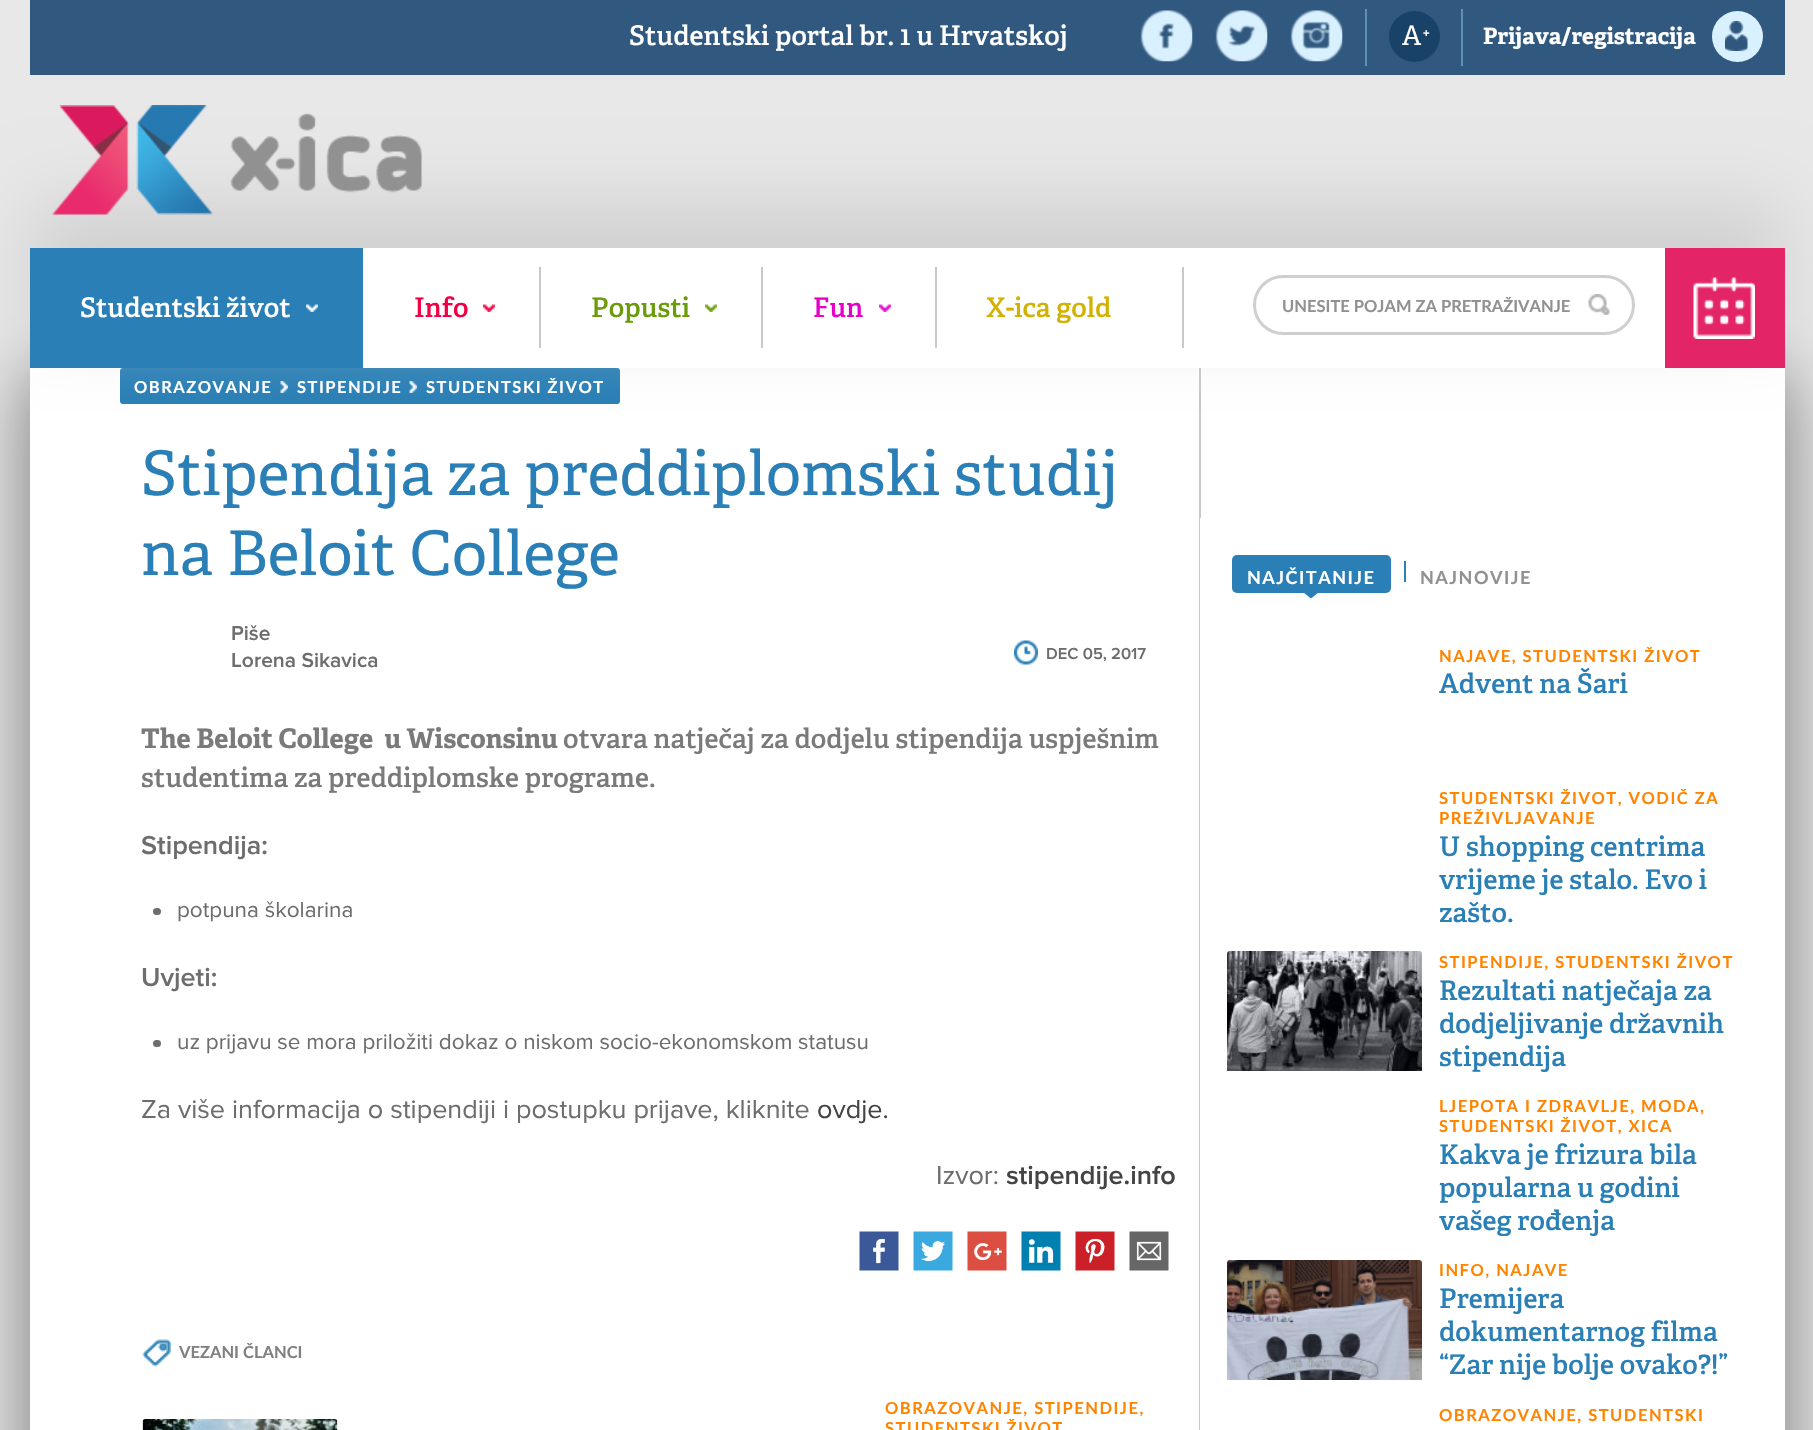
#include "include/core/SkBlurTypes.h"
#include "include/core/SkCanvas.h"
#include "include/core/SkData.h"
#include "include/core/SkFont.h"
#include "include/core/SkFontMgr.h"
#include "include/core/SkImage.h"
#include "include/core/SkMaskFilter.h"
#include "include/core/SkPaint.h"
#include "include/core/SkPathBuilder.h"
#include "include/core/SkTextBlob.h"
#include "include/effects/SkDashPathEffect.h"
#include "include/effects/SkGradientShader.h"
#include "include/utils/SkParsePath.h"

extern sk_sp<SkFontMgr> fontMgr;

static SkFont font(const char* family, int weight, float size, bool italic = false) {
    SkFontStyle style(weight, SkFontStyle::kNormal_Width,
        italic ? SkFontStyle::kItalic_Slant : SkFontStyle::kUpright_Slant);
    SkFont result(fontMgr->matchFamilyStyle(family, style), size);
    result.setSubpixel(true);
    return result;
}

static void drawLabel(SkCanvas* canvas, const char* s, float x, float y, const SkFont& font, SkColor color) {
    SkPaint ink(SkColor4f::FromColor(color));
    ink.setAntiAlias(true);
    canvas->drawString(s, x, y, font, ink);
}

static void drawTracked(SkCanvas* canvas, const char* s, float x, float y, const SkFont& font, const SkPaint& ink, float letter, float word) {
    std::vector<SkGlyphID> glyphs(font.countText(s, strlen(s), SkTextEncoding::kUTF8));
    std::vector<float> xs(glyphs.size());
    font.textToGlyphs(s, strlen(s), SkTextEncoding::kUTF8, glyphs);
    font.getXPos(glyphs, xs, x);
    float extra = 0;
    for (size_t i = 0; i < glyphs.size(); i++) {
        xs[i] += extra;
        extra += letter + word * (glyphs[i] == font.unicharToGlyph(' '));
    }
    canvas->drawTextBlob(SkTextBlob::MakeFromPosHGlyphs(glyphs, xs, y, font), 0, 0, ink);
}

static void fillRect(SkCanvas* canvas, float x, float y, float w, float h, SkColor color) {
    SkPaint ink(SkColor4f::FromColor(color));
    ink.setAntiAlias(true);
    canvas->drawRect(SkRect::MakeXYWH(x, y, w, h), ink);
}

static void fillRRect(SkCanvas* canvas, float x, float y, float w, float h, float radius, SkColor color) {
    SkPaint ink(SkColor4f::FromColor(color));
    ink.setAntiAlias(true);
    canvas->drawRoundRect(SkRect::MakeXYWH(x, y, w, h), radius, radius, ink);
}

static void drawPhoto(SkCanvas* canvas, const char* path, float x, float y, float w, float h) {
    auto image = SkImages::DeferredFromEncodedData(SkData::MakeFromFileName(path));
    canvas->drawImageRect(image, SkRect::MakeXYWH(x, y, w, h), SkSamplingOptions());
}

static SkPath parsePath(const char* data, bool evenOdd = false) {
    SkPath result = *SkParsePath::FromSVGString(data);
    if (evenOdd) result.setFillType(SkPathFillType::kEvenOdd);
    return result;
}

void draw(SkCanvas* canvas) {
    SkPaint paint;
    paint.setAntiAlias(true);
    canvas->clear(0xFFE8E8E8);
    fillRect(canvas, 30, 0, 1755, 75, 0xFF31597F);
    SkFont font1 = font("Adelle", 600, 27);
    drawLabel(canvas, "Studentski portal br. 1 u Hrvatskoj", 629, 45, font1, 0xFFFFFFFF);
    drawPhoto(canvas, "assets/img1.png", 1140, 10, 53, 52);
    drawPhoto(canvas, "assets/img2.png", 1215, 10, 53, 52);
    drawPhoto(canvas, "assets/img3.png", 1290, 10, 53, 52);
    fillRect(canvas, 1365, 9, 2, 57, 0xFF5E91B4);
    paint.setColor(0xFF194269);
    canvas->drawCircle(1414.5f, 36.5f, 25.5f, paint);
    SkFont font2 = font("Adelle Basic", 400, 27);
    drawLabel(canvas, "A", 1402, 45, font2, 0xFFFFFFFF);
    SkFont font3 = font("Adelle Basic", 400, 15);
    drawLabel(canvas, "+", 1422, 38, font3, 0xFFFFFFFF);
    fillRect(canvas, 1461, 9, 2, 57, 0xFF5E91B4);
    SkFont font4 = font("Adelle Basic", 700, 22.5f);
    drawLabel(canvas, "Prijava/registracija", 1483, 44, font4, 0xFFFFFFFF);
    paint.setColor(0xFFD9F0FF);
    canvas->drawCircle(1737.5f, 36.5f, 25.5f, paint);
    drawPhoto(canvas, "assets/img4.png", 1725, 21, 23, 30);
    paint.setColor(0x80000000);
    paint.setMaskFilter(SkMaskFilter::MakeBlur(kNormal_SkBlurStyle, 37.5f));
    canvas->drawRect(SkRect::MakeXYWH(30, 368, 1755, 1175), paint);
    paint.setMaskFilter(nullptr);
    fillRect(canvas, 30, 368, 1755, 1062, 0xFFFFFFFF);
    fillRect(canvas, 1199, 368, 2, 1062, 0xFFC8C8C8);
    fillRRect(canvas, 120, 368, 500, 36, 3, 0xFF297FB6);
    drawPhoto(canvas, "assets/img12.png", 280, 381, 8, 12);
    drawPhoto(canvas, "assets/img12.png", 409, 381, 8, 12);
    paint.setColor(0xFFD0D0D0);
    paint.setMaskFilter(SkMaskFilter::MakeBlur(kNormal_SkBlurStyle, 37.5f));
    canvas->drawRect(SkRect::MakeXYWH(30, 203, 1755, 120), paint);
    paint.setMaskFilter(nullptr);
    drawPhoto(canvas, "assets/img5.png", 52, 105, 370, 110);
    fillRect(canvas, 363, 248, 1302, 120, 0xFFFFFFFF);
    fillRect(canvas, 30, 248, 333, 120, 0xFF297FB6);
    drawLabel(canvas, "Studentski život", 80, 317, font1, 0xFFFFFFFF);
    drawPhoto(canvas, "assets/img6.png", 306, 304, 12, 8);
    drawLabel(canvas, "Info", 414, 317, font1, 0xFFF10044);
    drawPhoto(canvas, "assets/img7.png", 483, 304, 12, 8);
    fillRect(canvas, 539, 267, 2, 81, 0xFFC9C9C9);
    drawLabel(canvas, "Popusti", 591, 317, font1, 0xFF6A9C09);
    drawPhoto(canvas, "assets/img8.png", 705, 304, 12, 8);
    fillRect(canvas, 761, 267, 2, 81, 0xFFC9C9C9);
    drawLabel(canvas, "Fun", 813, 317, font1, 0xFFE700C9);
    drawPhoto(canvas, "assets/img9.png", 879, 304, 12, 8);
    fillRect(canvas, 935, 267, 2, 81, 0xFFC9C9C9);
    drawLabel(canvas, "X-ica gold", 986, 317, font1, 0xFFD2B100);
    fillRect(canvas, 1182, 267, 2, 81, 0xFFC9C9C9);
    paint.setStroke(true);
    paint.setStrokeWidth(3);
    paint.setColor(0xFFCFCFCF);
    canvas->drawRoundRect(SkRect::MakeXYWH(1254.5f, 276.5f, 379, 57), 28.5f, 28.5f, paint);
    drawPhoto(canvas, "assets/img10.png", 1588, 294, 22, 21);
    SkFont font5 = font("Lato", 700, 16.5f);
    drawLabel(canvas, "UNESITE POJAM ZA PRETRAŽIVANJE", 1282, 312, font5, 0xFF919191);
    fillRect(canvas, 1665, 248, 120, 120, 0xFFE32568);
    drawPhoto(canvas, "assets/img11.png", 1693, 277, 62, 62);
    paint.setStroke(false);
    paint.setColor(0xFFFFFFFF);
    drawTracked(canvas, "OBRAZOVANJE", 134, 393, font5, paint, 1.5f, 0);
    drawTracked(canvas, "STIPENDIJE", 297, 393, font5, paint, 1.5f, 0);
    drawTracked(canvas, "STUDENTSKI ŽIVOT", 426, 393, font5, paint, 1.5f, 0);
    SkFont font6 = font("Adelle Basic", 400, 61.5f);
    drawLabel(canvas, "Stipendija za preddiplomski studij", 141, 495, font6, 0xFF297FB6);
    drawLabel(canvas, "na Beloit College", 141, 575, font6, 0xFF297FB6);
    SkFont font7 = font("Proxima Nova", 600, 21);
    drawLabel(canvas, "Piše", 231, 640, font7, 0xFF6D6D6D);
    drawLabel(canvas, "Lorena Sikavica", 231, 667, font7, 0xFF6D6D6D);
    drawPhoto(canvas, "assets/img13.png", 1014, 640, 24, 25);
    SkFont font8 = font("Proxima Nova", 600, 16.5f);
    drawLabel(canvas, "DEC 05, 2017", 1046, 659, font8, 0xFF6D6D6D);
    SkFont font9 = font("Adelle Basic", 700, 27);
    drawLabel(canvas, "The Beloit College  u Wisconsinu", 141, 748, font9, 0xFF7A7A7A);
    drawLabel(canvas, "otvara natječaj za dodjelu stipendija uspješnim", 563, 748, font1, 0xFF7A7A7A);
    drawLabel(canvas, "studentima za preddiplomske programe.", 141, 787, font1, 0xFF7A7A7A);
    SkFont font10 = font("Proxima Nova", 600, 27);
    drawLabel(canvas, "Stipendija:", 141, 854, font10, 0xFF6D6D6D);
    fillRRect(canvas, 153, 908, 8, 7, 3.5f, 0xFF6D6D6D);
    SkFont font11 = font("Proxima Nova", 400, 22.5f);
    drawLabel(canvas, "potpuna školarina", 177, 917, font11, 0xFF6D6D6D);
    drawLabel(canvas, "Uvjeti:", 141, 986, font10, 0xFF6D6D6D);
    fillRRect(canvas, 153, 1040, 8, 7, 3.5f, 0xFF6D6D6D);
    drawLabel(canvas, "uz prijavu se mora priložiti dokaz o niskom socio-ekonomskom statusu", 177, 1049, font11, 0xFF6D6D6D);
    SkFont font12 = font("Proxima Nova", 400, 27);
    drawLabel(canvas, "Za više informacija o stipendiji i postupku prijave, kliknite", 141, 1118, font12, 0xFF6D6D6D);
    drawLabel(canvas, "ovdje.", 817, 1118, font12, 0xFF444444);
    drawLabel(canvas, "Izvor:", 936, 1184, font12, 0xFF6D6D6D);
    drawLabel(canvas, "stipendije.info", 1006, 1184, font10, 0xFF444444);
    drawPhoto(canvas, "assets/img14.png", 859, 1231, 40, 40);
    drawPhoto(canvas, "assets/img15.png", 913, 1231, 40, 40);
    drawPhoto(canvas, "assets/img16.png", 967, 1231, 40, 40);
    drawPhoto(canvas, "assets/img17.png", 1021, 1231, 40, 40);
    drawPhoto(canvas, "assets/img18.png", 1075, 1231, 40, 40);
    drawPhoto(canvas, "assets/img19.png", 1129, 1231, 40, 40);
    drawPhoto(canvas, "assets/img20.png", 142, 1339, 29, 28);
    drawLabel(canvas, "VEZANI ČLANCI", 179, 1358, font5, 0xFF808080);
    drawPhoto(canvas, "assets/img21.png", 142, 1419, 196, 11);
    paint.setColor(0xFFFF8400);
    drawTracked(canvas, "OBRAZOVANJE, STIPENDIJE,", 885, 1414, font5, paint, 1.5f, 0);
    drawTracked(canvas, "STUDENTSKI ŽIVOT", 885, 1434, font5, paint, 1.5f, 0);
    fillRect(canvas, 1200, 518, 1, 912, 0xFFFFFFFF);
    fillRRect(canvas, 1232, 555, 159, 38, 5, 0xFF297FB6);
    SkFont font13 = font("Lato", 700, 18);
    paint.setColor(0xFFFFFFFF);
    drawTracked(canvas, "NAJČITANIJE", 1247, 584, font13, paint, 1.5f, 0);
    fillRect(canvas, 1404, 561, 2, 21, 0xFF297FB6);
    paint.setColor(0xFF297FB6);
    canvas->drawPath(parsePath("M1303.5 592.5H1318.5L1311 598.5Z"), paint);
    paint.setColor(0xFF919191);
    drawTracked(canvas, "NAJNOVIJE", 1420, 584, font13, paint, 1.5f, 0);
    paint.setColor(0xFFFF8400);
    drawTracked(canvas, "NAJAVE, STUDENTSKI ŽIVOT", 1439, 662, font5, paint, 1.5f, 0);
    drawLabel(canvas, "Advent na Šari", 1439, 693, font1, 0xFF297FB6);
    drawTracked(canvas, "STUDENTSKI ŽIVOT, VODIČ ZA", 1439, 804, font5, paint, 1.5f, 0);
    drawTracked(canvas, "PREŽIVLJAVANJE", 1439, 824, font5, paint, 1.5f, 0);
    drawLabel(canvas, "U shopping centrima", 1439, 856, font1, 0xFF297FB6);
    drawLabel(canvas, "vrijeme je stalo. Evo i", 1439, 889, font1, 0xFF297FB6);
    drawLabel(canvas, "zašto.", 1439, 922, font1, 0xFF297FB6);
    drawPhoto(canvas, "assets/img22.png", 1227, 951, 195, 120);
    drawTracked(canvas, "STIPENDIJE, STUDENTSKI ŽIVOT", 1439, 968, font5, paint, 1.5f, 0);
    drawLabel(canvas, "Rezultati natječaja za", 1439, 1000, font1, 0xFF297FB6);
    drawLabel(canvas, "dodjeljivanje državnih", 1439, 1033, font1, 0xFF297FB6);
    drawLabel(canvas, "stipendija", 1439, 1066, font1, 0xFF297FB6);
    drawTracked(canvas, "LJEPOTA I ZDRAVLJE, MODA,", 1439, 1112, font5, paint, 1.5f, 0);
    drawTracked(canvas, "STUDENTSKI ŽIVOT, XICA", 1439, 1132, font5, paint, 1.5f, 0);
    drawLabel(canvas, "Kakva je frizura bila", 1439, 1164, font1, 0xFF297FB6);
    drawLabel(canvas, "popularna u godini", 1439, 1197, font1, 0xFF297FB6);
    drawLabel(canvas, "vašeg rođenja", 1439, 1230, font1, 0xFF297FB6);
    drawPhoto(canvas, "assets/img23.png", 1227, 1260, 195, 120);
    drawTracked(canvas, "INFO, NAJAVE", 1439, 1276, font5, paint, 1.5f, 0);
    drawLabel(canvas, "Premijera", 1439, 1308, font1, 0xFF297FB6);
    drawLabel(canvas, "dokumentarnog filma", 1439, 1341, font1, 0xFF297FB6);
    drawLabel(canvas, "“Zar nije bolje ovako?!”", 1439, 1374, font1, 0xFF297FB6);
    drawTracked(canvas, "OBRAZOVANJE, STUDENTSKI", 1439, 1421, font5, paint, 1.5f, 0);
}
